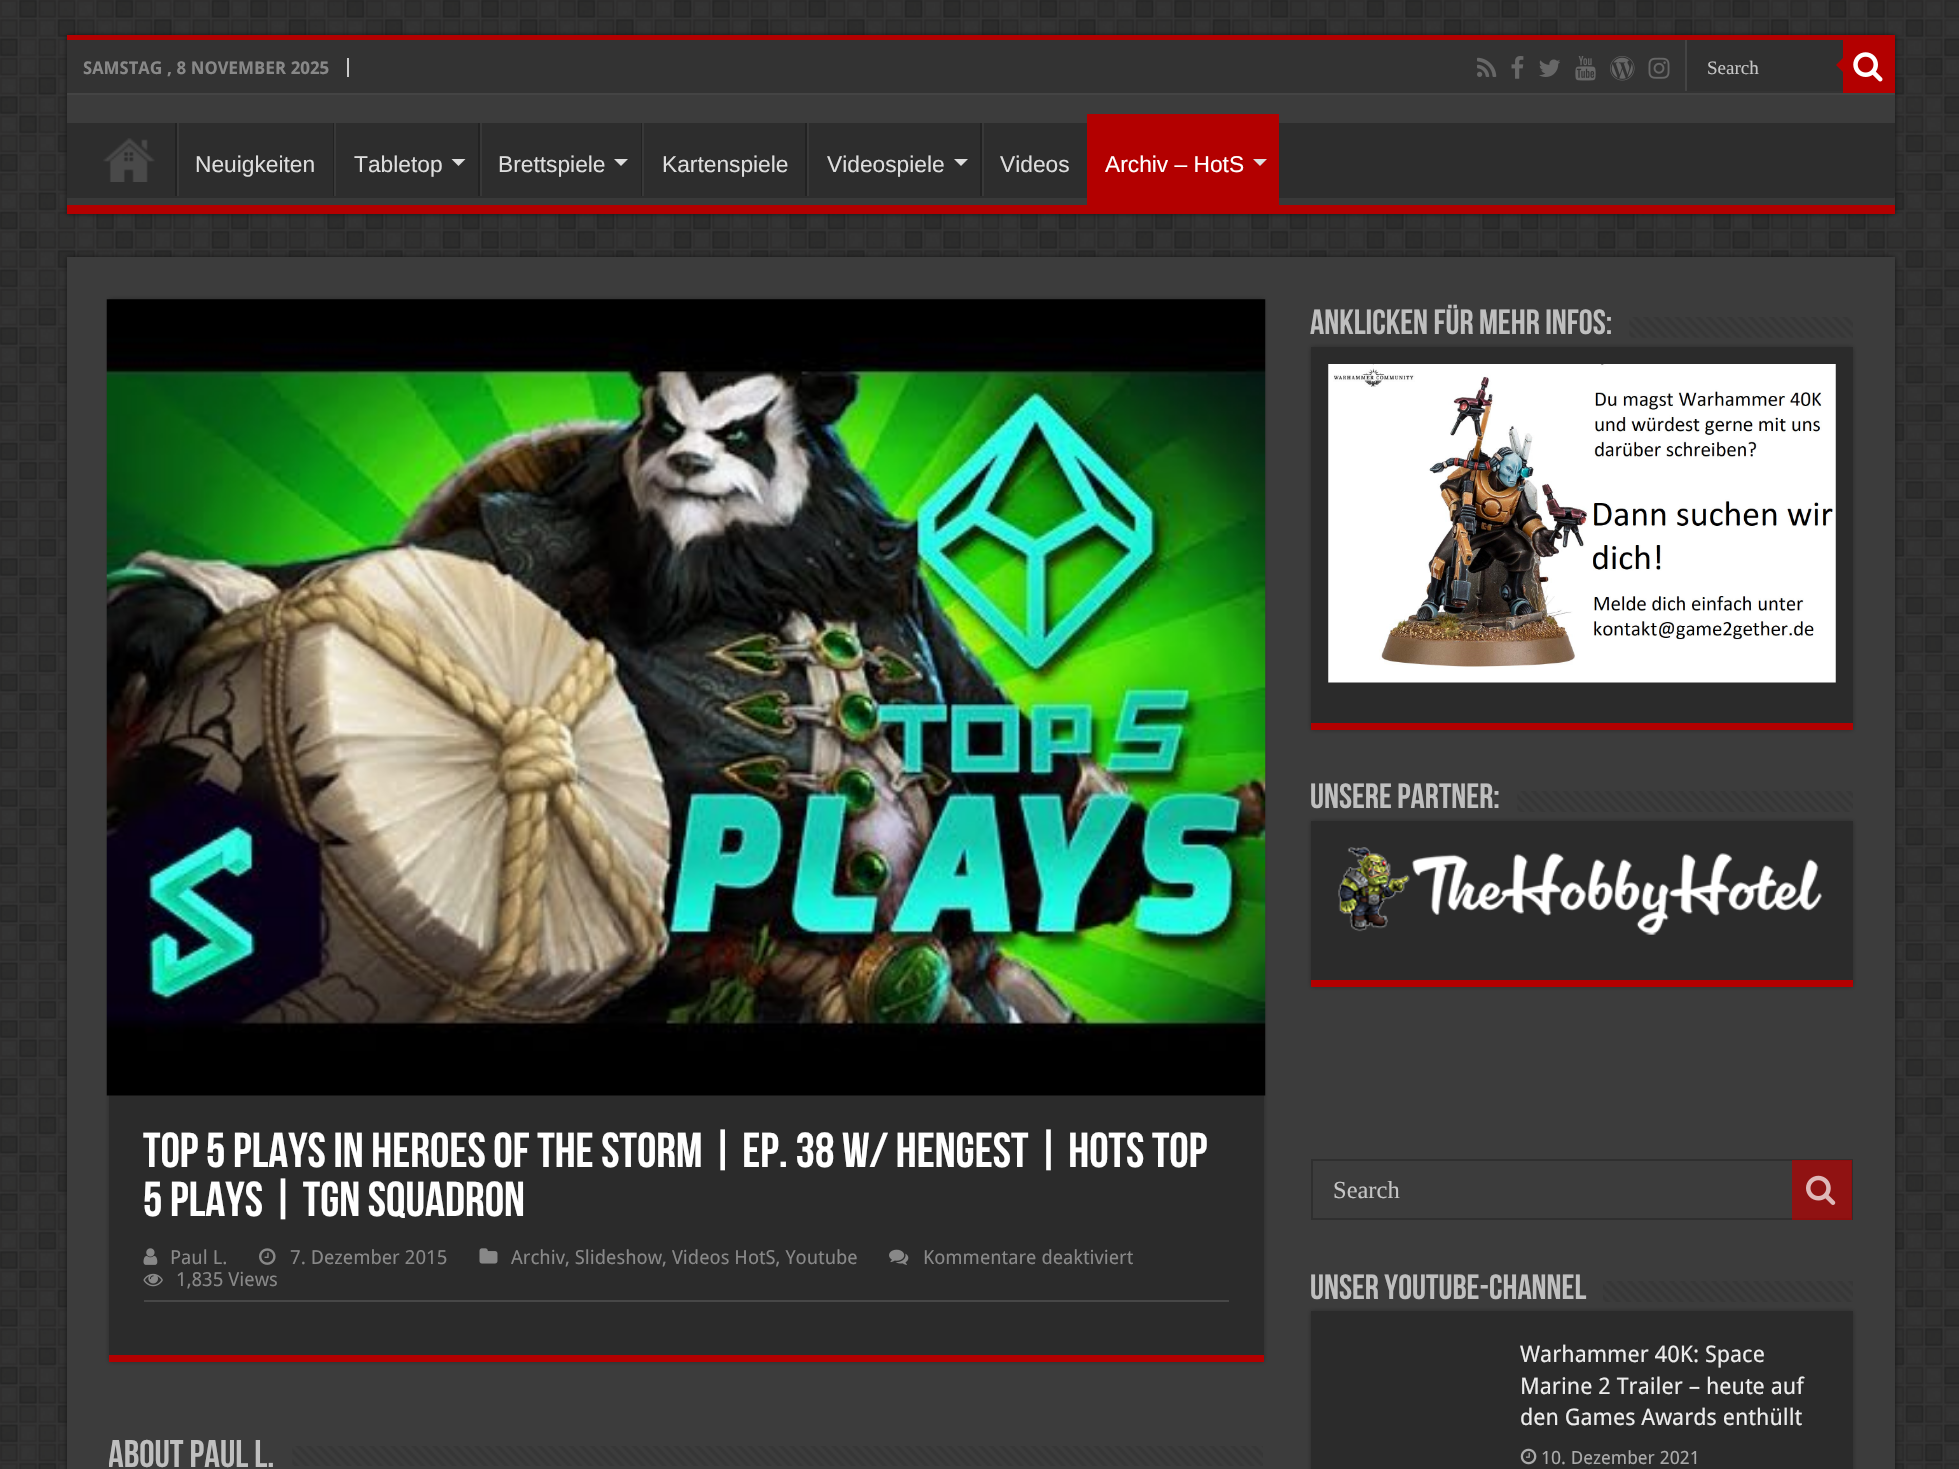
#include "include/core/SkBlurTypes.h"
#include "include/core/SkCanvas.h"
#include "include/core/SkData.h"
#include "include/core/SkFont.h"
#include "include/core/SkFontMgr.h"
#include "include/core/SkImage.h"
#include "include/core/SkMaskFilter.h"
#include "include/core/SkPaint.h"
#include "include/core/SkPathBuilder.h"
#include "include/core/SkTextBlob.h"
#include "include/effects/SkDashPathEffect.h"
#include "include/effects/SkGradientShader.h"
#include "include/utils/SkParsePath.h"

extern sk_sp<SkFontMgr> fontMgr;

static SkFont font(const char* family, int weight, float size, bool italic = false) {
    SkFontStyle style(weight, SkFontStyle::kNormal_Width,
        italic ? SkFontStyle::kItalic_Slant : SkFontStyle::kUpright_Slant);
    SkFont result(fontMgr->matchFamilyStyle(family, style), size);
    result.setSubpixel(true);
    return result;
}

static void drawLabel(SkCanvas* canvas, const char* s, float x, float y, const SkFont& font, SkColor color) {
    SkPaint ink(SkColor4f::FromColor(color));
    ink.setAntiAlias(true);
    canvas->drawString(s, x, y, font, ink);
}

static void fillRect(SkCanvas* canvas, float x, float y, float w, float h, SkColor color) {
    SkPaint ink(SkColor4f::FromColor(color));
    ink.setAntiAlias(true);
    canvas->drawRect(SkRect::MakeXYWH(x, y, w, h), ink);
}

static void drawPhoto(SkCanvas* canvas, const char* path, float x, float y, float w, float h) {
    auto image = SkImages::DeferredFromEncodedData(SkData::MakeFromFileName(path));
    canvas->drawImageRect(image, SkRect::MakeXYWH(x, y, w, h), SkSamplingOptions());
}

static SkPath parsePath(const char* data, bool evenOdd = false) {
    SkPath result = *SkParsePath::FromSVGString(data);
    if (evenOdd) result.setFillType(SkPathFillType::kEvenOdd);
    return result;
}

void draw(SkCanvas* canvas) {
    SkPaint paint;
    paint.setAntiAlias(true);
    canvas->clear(0xFF000000);
    drawPhoto(canvas, "assets/img1.png", 0, 0, 1959, 1469);
    paint.setColor(0xFF141414);
    paint.setMaskFilter(SkMaskFilter::MakeBlur(kNormal_SkBlurStyle, 2.5f));
    canvas->drawRect(SkRect::MakeXYWH(67, 35, 1828, 179), paint);
    paint.setMaskFilter(nullptr);
    fillRect(canvas, 67, 95, 1828, 28, 0xFF3C3C3C);
    fillRect(canvas, 67, 35, 1828, 5, 0xFFB30000);
    fillRect(canvas, 67, 40, 1776, 53, 0xFF333333);
    fillRect(canvas, 67, 93, 1828, 2, 0xFF444444);
    fillRect(canvas, 347, 58, 2, 19, 0xFFCCCCCC);
    SkFont font1 = font("Droid Sans", 700, 17.5f);
    drawLabel(canvas, "SAMSTAG , 8 NOVEMBER 2025", 83, 74, font1, 0xFF888888);
    drawPhoto(canvas, "assets/img2.png", 1477, 57, 20, 20);
    drawPhoto(canvas, "assets/img3.png", 1511, 56, 13, 23);
    drawPhoto(canvas, "assets/img4.png", 1539, 59, 21, 18);
    drawPhoto(canvas, "assets/img5.png", 1575, 56, 21, 25);
    drawPhoto(canvas, "assets/img6.png", 1610, 56, 25, 25);
    drawPhoto(canvas, "assets/img7.png", 1648, 57, 22, 22);
    fillRect(canvas, 1687, 40, 156, 51, 0xFF303030);
    fillRect(canvas, 1685, 40, 2, 51, 0xFF444444);
    SkFont font2 = font("Liberation Serif", 400, 19);
    drawLabel(canvas, "Search", 1707, 74, font2, 0xFFC5C5C5);
    fillRect(canvas, 1843, 40, 52, 53, 0xFFB30000);
    drawPhoto(canvas, "assets/img8.png", 1853, 52, 30, 30);
    paint.setColor(0xFFB30000);
    canvas->drawPath(parsePath("M1843 58V72L1836 65Z"), paint);
    fillRect(canvas, 67, 123, 1828, 75, 0xFF2D2D2D);
    canvas->save();
    canvas->clipRect(SkRect::MakeXYWH(67, 123, 1828, 82));
    paint.setColor(0xFF393939);
    canvas->drawPath(parsePath("M-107-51H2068V378H-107ZM65 112H1894C1894 112 1895 113 1895 114V196C1895 197 1894 198 1894 198H65C64 198 63 197 63 196V114C63 113 64 112 65 112Z", true), paint);
    canvas->restore();
    fillRect(canvas, 67, 205, 1828, 9, 0xFFB30000);
    drawPhoto(canvas, "assets/img9.png", 103, 138, 52, 44);
    fillRect(canvas, 175, 123, 2, 73, 0xFF222222);
    fillRect(canvas, 177, 123, 2, 73, 0xFF383838);
    SkFont font3 = font("Liberation Sans", 400, 22.75f);
    drawLabel(canvas, "Neuigkeiten", 195, 172, font3, 0xFFDDDDDD);
    fillRect(canvas, 333, 123, 1, 73, 0xFF222222);
    fillRect(canvas, 334, 123, 2, 73, 0xFF383838);
    drawLabel(canvas, "Tabletop", 354, 172, font3, 0xFFDDDDDD);
    paint.setColor(0xFFDDDDDD);
    canvas->drawPath(parsePath("M451.5 159H465.5L458.5 166Z"), paint);
    fillRect(canvas, 478, 123, 2, 73, 0xFF222222);
    fillRect(canvas, 480, 123, 2, 73, 0xFF383838);
    drawLabel(canvas, "Brettspiele", 498, 172, font3, 0xFFDDDDDD);
    canvas->drawPath(parsePath("M614 159H628L621 166Z"), paint);
    fillRect(canvas, 641, 123, 1, 73, 0xFF222222);
    fillRect(canvas, 642, 123, 2, 73, 0xFF383838);
    drawLabel(canvas, "Kartenspiele", 662, 172, font3, 0xFFDDDDDD);
    fillRect(canvas, 805, 123, 2, 73, 0xFF222222);
    fillRect(canvas, 807, 123, 2, 73, 0xFF383838);
    drawLabel(canvas, "Videospiele", 827, 172, font3, 0xFFDDDDDD);
    canvas->drawPath(parsePath("M954 159H968L961 166Z"), paint);
    fillRect(canvas, 980, 123, 2, 73, 0xFF222222);
    fillRect(canvas, 982, 123, 2, 73, 0xFF383838);
    drawLabel(canvas, "Videos", 1000, 172, font3, 0xFFDDDDDD);
    fillRect(canvas, 1087, 114, 192, 91, 0xFFB30000);
    drawLabel(canvas, "Archiv – HotS", 1105, 172, font3, 0xFFFFFFFF);
    canvas->drawPath(parsePath("M1253 159H1267L1260 166Z"), paint);
    paint.setColor(0xFF141414);
    paint.setMaskFilter(SkMaskFilter::MakeBlur(kNormal_SkBlurStyle, 2.5f));
    canvas->drawRect(SkRect::MakeXYWH(67, 257, 1828, 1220), paint);
    paint.setMaskFilter(nullptr);
    fillRect(canvas, 67, 257, 1828, 1212, 0xFF3C3C3C);
    paint.setColor(0xFF2A2A2A);
    paint.setMaskFilter(SkMaskFilter::MakeBlur(kNormal_SkBlurStyle, 2.5f));
    canvas->drawRect(SkRect::MakeXYWH(109, 299, 1155, 1063), paint);
    paint.setMaskFilter(nullptr);
    fillRect(canvas, 109, 299, 1155, 1056, 0xFF2B2B2B);
    fillRect(canvas, 109, 1355, 1155, 7, 0xFFB30000);
    drawPhoto(canvas, "assets/img10.png", 106, 299, 1160, 797);
    SkFont font4 = font("Bebas Neue", 700, 49);
    drawLabel(canvas, "Top 5 Plays in Heroes of the Storm | Ep. 38 w/ Hengest | HotS Top", 143, 1167, font4, 0xFFFFFFFF);
    drawLabel(canvas, "5 Plays | TGN Squadron", 143, 1216, font4, 0xFFFFFFFF);
    fillRect(canvas, 144, 1300, 1085, 2, 0xFF474747);
    drawPhoto(canvas, "assets/img11.png", 143, 1248, 15, 17);
    SkFont font5 = font("Droid Sans", 400, 19.3f);
    drawLabel(canvas, "Paul L.", 170, 1264, font5, 0xFF888888);
    drawPhoto(canvas, "assets/img12.png", 259, 1248, 17, 17);
    drawLabel(canvas, "7. Dezember 2015", 290, 1264, font5, 0xFF888888);
    drawPhoto(canvas, "assets/img13.png", 479, 1248, 19, 16);
    drawLabel(canvas, "Archiv, Slideshow, Videos HotS, Youtube", 511, 1264, font5, 0xFF888888);
    drawPhoto(canvas, "assets/img14.png", 889, 1249, 20, 16);
    drawLabel(canvas, "Kommentare deaktiviert", 923, 1264, font5, 0xFF888888);
    drawPhoto(canvas, "assets/img15.png", 143, 1273, 20, 14);
    drawLabel(canvas, "1,835 Views", 176, 1286, font5, 0xFF888888);
    canvas->save();
    canvas->clipRect(SkRect::MakeXYWH(109, 1432, 1155, 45));
    SkFont font6 = font("Bebas Neue", 700, 38.5f);
    drawLabel(canvas, "About Paul L.", 108, 1467, font6, 0xFFBFBFBF);
    canvas->restore();
    drawPhoto(canvas, "assets/img16.png", 292, 1446, 971, 20);
    SkFont font7 = font("Bebas Neue", 700, 35);
    drawLabel(canvas, "Anklicken für mehr Infos:", 1310, 334, font7, 0xFFBFBFBF);
    drawPhoto(canvas, "assets/img17.png", 1629, 317, 224, 21);
    paint.setMaskFilter(SkMaskFilter::MakeBlur(kNormal_SkBlurStyle, 2.5f));
    canvas->drawRect(SkRect::MakeXYWH(1311, 347, 542, 383), paint);
    paint.setMaskFilter(nullptr);
    fillRect(canvas, 1311, 347, 542, 376, 0xFF2B2B2B);
    fillRect(canvas, 1311, 723, 542, 7, 0xFFB30000);
    drawPhoto(canvas, "assets/img18.png", 1328, 364, 508, 319);
    drawLabel(canvas, "Unsere Partner:", 1310, 808, font7, 0xFFBFBFBF);
    drawPhoto(canvas, "assets/img19.png", 1517, 791, 336, 21);
    paint.setMaskFilter(SkMaskFilter::MakeBlur(kNormal_SkBlurStyle, 2.5f));
    canvas->drawRect(SkRect::MakeXYWH(1311, 821, 542, 166), paint);
    paint.setMaskFilter(nullptr);
    fillRect(canvas, 1311, 821, 542, 159, 0xFF2B2B2B);
    fillRect(canvas, 1311, 980, 542, 7, 0xFFB30000);
    drawPhoto(canvas, "assets/img20.png", 1338, 847, 484, 88);
    paint.setStroke(true);
    paint.setStrokeWidth(2);
    paint.setColor(0xFF2F2F2F);
    canvas->drawRect(SkRect::MakeXYWH(1312, 1160, 540, 59), paint);
    SkFont font8 = font("Liberation Serif", 400, 24.5f);
    drawLabel(canvas, "Search", 1333, 1198, font8, 0xFFC5C5C5);
    fillRect(canvas, 1792, 1160, 60, 60, 0xB3B30000);
    drawPhoto(canvas, "assets/img21.png", 1806, 1175, 30, 30);
    drawLabel(canvas, "Unser Youtube-Channel", 1310, 1299, font7, 0xFFBFBFBF);
    drawPhoto(canvas, "assets/img22.png", 1603, 1281, 250, 21);
    paint.setStroke(false);
    paint.setColor(0xFF2A2A2A);
    paint.setMaskFilter(SkMaskFilter::MakeBlur(kNormal_SkBlurStyle, 2.5f));
    canvas->drawRect(SkRect::MakeXYWH(1311, 1311, 542, 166), paint);
    paint.setMaskFilter(nullptr);
    fillRect(canvas, 1311, 1311, 542, 158, 0xFF2B2B2B);
    SkFont font9 = font("Droid Sans", 400, 22.75f);
    drawLabel(canvas, "Warhammer 40K: Space", 1520, 1362, font9, 0xFFECECEC);
    drawLabel(canvas, "Marine 2 Trailer – heute auf", 1520, 1394, font9, 0xFFECECEC);
    drawLabel(canvas, "den Games Awards enthüllt", 1520, 1425, font9, 0xFFECECEC);
    drawPhoto(canvas, "assets/img23.png", 1520, 1448, 17, 17);
    SkFont font10 = font("Droid Sans", 400, 18.25f);
    drawLabel(canvas, "10. Dezember 2021", 1541, 1464, font10, 0xFFAAAAAA);
}
